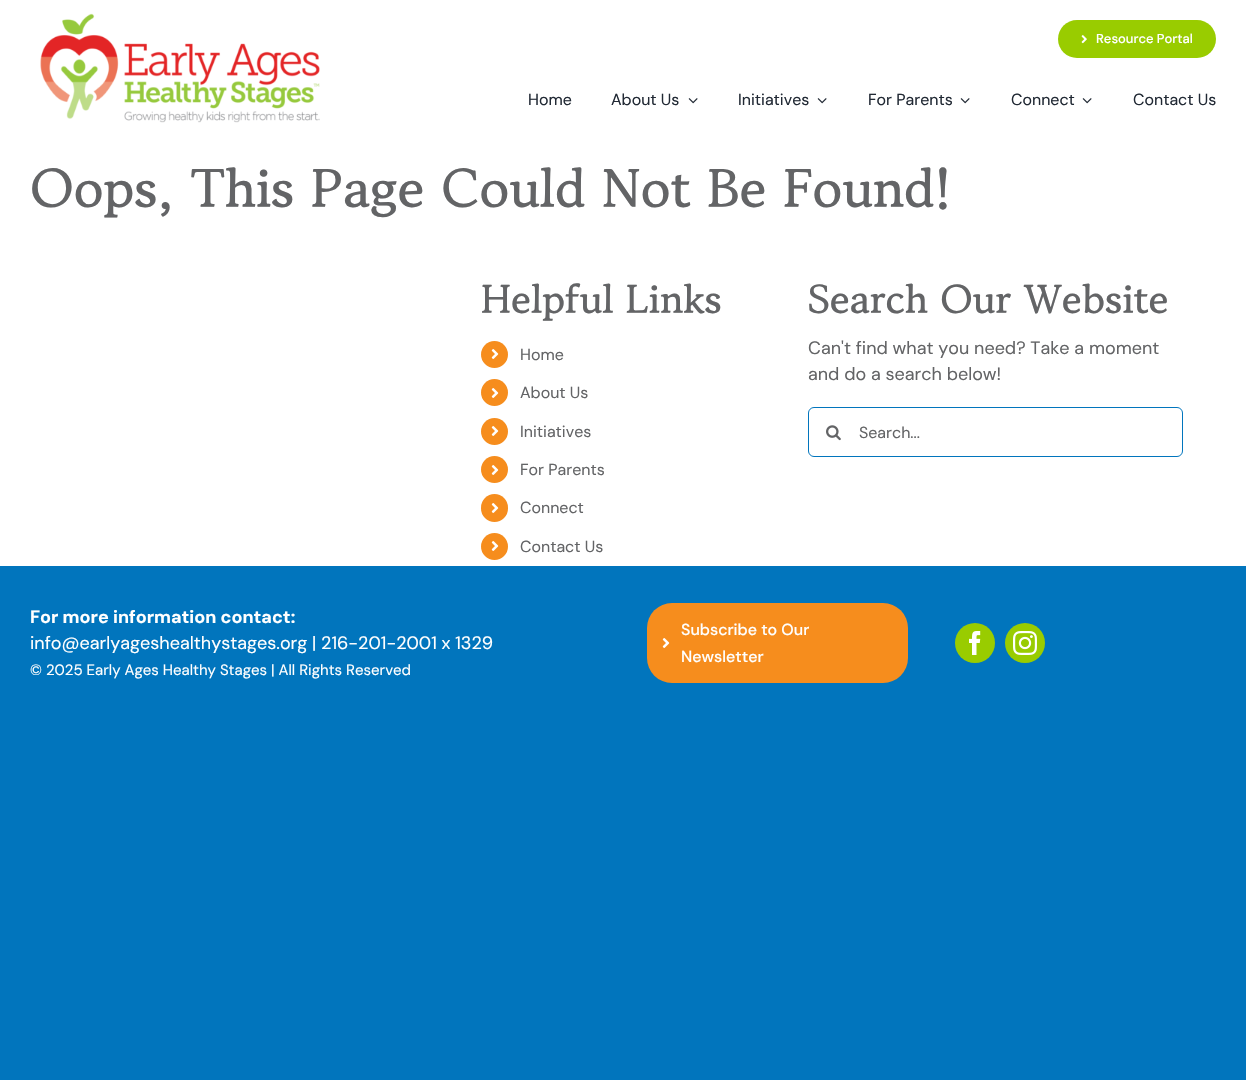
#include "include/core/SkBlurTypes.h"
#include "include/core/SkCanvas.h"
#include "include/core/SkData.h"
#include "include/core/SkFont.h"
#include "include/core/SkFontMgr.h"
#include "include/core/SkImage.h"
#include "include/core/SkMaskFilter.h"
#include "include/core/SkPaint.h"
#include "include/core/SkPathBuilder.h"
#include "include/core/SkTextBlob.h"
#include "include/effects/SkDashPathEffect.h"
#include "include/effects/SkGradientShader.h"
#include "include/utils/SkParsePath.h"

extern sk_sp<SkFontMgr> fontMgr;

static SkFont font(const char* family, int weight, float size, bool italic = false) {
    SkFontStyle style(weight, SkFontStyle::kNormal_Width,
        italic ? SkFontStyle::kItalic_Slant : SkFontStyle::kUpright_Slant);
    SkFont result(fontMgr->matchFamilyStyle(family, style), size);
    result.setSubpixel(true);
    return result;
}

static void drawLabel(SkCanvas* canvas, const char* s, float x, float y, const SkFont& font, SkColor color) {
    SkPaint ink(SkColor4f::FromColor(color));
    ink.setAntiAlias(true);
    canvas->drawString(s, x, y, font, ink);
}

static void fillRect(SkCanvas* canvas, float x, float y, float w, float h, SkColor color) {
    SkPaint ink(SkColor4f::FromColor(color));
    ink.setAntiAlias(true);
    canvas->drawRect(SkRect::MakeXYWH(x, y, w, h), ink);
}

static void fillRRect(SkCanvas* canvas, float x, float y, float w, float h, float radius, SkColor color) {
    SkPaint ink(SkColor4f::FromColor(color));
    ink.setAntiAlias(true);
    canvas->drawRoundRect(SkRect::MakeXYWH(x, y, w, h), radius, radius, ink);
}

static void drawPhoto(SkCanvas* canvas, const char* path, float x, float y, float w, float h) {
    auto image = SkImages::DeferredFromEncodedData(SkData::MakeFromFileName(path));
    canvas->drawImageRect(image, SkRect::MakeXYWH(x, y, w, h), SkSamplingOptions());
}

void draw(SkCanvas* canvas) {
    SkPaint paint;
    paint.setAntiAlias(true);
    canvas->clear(0xFF0175BD);
    fillRect(canvas, 0, 0, 1246, 566, 0xFFFFFFFF);
    drawPhoto(canvas, "assets/img1.png", 40, 13, 280, 110);
    fillRRect(canvas, 1058, 20, 158, 38, 19, 0xFF99CC00);
    drawPhoto(canvas, "assets/img2.png", 1081, 35, 6, 9);
    SkFont font1 = font("DM Sans", 500, 13);
    drawLabel(canvas, "Resource Portal", 1096, 43, font1, 0xFFFFFFFF);
    SkFont font2 = font("DM Sans", 400, 16);
    drawLabel(canvas, "Home", 528, 105, font2, 0xFF212934);
    drawLabel(canvas, "About Us", 611, 105, font2, 0xFF212934);
    drawPhoto(canvas, "assets/img3.png", 688, 98, 10, 6);
    drawLabel(canvas, "Initiatives", 738, 105, font2, 0xFF212934);
    drawPhoto(canvas, "assets/img3.png", 817, 98, 10, 6);
    drawLabel(canvas, "For Parents", 868, 105, font2, 0xFF212934);
    drawPhoto(canvas, "assets/img3.png", 960, 98, 10, 6);
    drawLabel(canvas, "Connect", 1011, 105, font2, 0xFF212934);
    drawPhoto(canvas, "assets/img3.png", 1082, 98, 10, 6);
    drawLabel(canvas, "Contact Us", 1133, 105, font2, 0xFF212934);
    SkFont font3 = font("Gowun Batang", 700, 54);
    drawLabel(canvas, "Oops, This Page Could Not Be Found!", 30, 211, font3, 0xFF636466);
    SkFont font4 = font("Gowun Batang", 700, 40);
    drawLabel(canvas, "Helpful Links", 481, 316, font4, 0xFF636466);
    paint.setColor(0xFFF68D1D);
    canvas->drawCircle(494.5f, 354.5f, 13.5f, paint);
    drawPhoto(canvas, "assets/img4.png", 491, 349, 8, 10);
    drawLabel(canvas, "Home", 520, 360, font2, 0xFF636466);
    canvas->drawCircle(494.5f, 392.5f, 13.5f, paint);
    drawPhoto(canvas, "assets/img4.png", 491, 388, 8, 10);
    drawLabel(canvas, "About Us", 520, 398, font2, 0xFF636466);
    canvas->drawCircle(494.5f, 431.5f, 13.5f, paint);
    drawPhoto(canvas, "assets/img4.png", 491, 426, 8, 10);
    drawLabel(canvas, "Initiatives", 520, 437, font2, 0xFF636466);
    canvas->drawCircle(494.5f, 469.5f, 13.5f, paint);
    drawPhoto(canvas, "assets/img4.png", 491, 465, 8, 10);
    drawLabel(canvas, "For Parents", 520, 475, font2, 0xFF636466);
    fillRRect(canvas, 481, 494, 27, 28, 13.5f, 0xFFF68D1D);
    drawPhoto(canvas, "assets/img4.png", 491, 503, 8, 10);
    drawLabel(canvas, "Connect", 520, 513, font2, 0xFF636466);
    canvas->drawCircle(494.5f, 546.5f, 13.5f, paint);
    drawPhoto(canvas, "assets/img4.png", 491, 541, 8, 10);
    drawLabel(canvas, "Contact Us", 520, 552, font2, 0xFF636466);
    drawLabel(canvas, "Search Our Website", 808, 316, font4, 0xFF636466);
    SkFont font5 = font("DM Sans", 400, 18);
    drawLabel(canvas, "Can't find what you need? Take a moment", 808, 354, font5, 0xFF636466);
    drawLabel(canvas, "and do a search below!", 808, 380, font5, 0xFF636466);
    paint.setStroke(true);
    paint.setStrokeWidth(1);
    paint.setColor(0xFF0175BD);
    canvas->drawRoundRect(SkRect::MakeXYWH(808.5f, 407.5f, 374, 49), 5.5f, 5.5f, paint);
    drawPhoto(canvas, "assets/img5.png", 826, 425, 15, 16);
    drawLabel(canvas, "Search...", 859, 438, font2, 0xFF636466);
    SkFont font6 = font("DM Sans", 700, 18);
    drawLabel(canvas, "For more information contact:", 30, 623, font6, 0xFFFFFFFF);
    drawLabel(canvas, "info@earlyageshealthystages.org | 216-201-2001 x 1329", 30, 649, font5, 0xFFFFFFFF);
    SkFont font7 = font("DM Sans", 400, 15);
    drawLabel(canvas, "© 2025 Early Ages Healthy Stages | All Rights Reserved", 30, 675, font7, 0xFFFFFFFF);
    fillRRect(canvas, 647, 603, 261, 80, 25, 0xFFF68D1D);
    drawPhoto(canvas, "assets/img4.png", 662, 638, 8, 10);
    SkFont font8 = font("DM Sans", 500, 16);
    drawLabel(canvas, "Subscribe to Our", 681, 635, font8, 0xFFFFFFFF);
    drawLabel(canvas, "Newsletter", 681, 662, font8, 0xFFFFFFFF);
    paint.setStroke(false);
    paint.setColor(0xFF99CC00);
    canvas->drawCircle(975, 643, 20, paint);
    drawPhoto(canvas, "assets/img6.png", 969, 631, 12, 24);
    canvas->drawCircle(1025, 643, 20, paint);
    drawPhoto(canvas, "assets/img7.png", 1013, 631, 24, 24);
}
